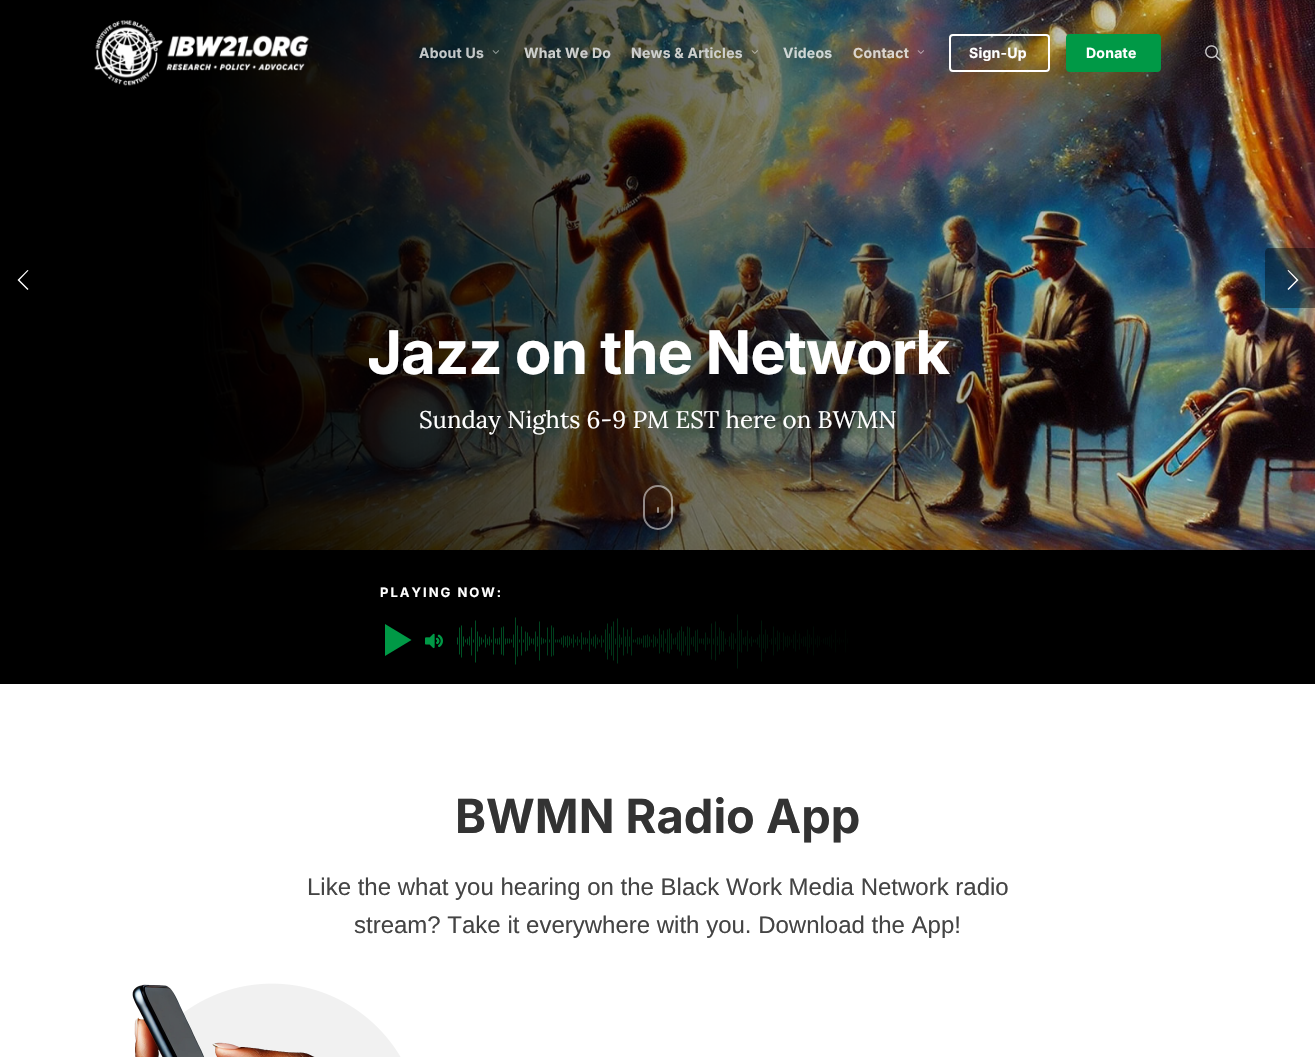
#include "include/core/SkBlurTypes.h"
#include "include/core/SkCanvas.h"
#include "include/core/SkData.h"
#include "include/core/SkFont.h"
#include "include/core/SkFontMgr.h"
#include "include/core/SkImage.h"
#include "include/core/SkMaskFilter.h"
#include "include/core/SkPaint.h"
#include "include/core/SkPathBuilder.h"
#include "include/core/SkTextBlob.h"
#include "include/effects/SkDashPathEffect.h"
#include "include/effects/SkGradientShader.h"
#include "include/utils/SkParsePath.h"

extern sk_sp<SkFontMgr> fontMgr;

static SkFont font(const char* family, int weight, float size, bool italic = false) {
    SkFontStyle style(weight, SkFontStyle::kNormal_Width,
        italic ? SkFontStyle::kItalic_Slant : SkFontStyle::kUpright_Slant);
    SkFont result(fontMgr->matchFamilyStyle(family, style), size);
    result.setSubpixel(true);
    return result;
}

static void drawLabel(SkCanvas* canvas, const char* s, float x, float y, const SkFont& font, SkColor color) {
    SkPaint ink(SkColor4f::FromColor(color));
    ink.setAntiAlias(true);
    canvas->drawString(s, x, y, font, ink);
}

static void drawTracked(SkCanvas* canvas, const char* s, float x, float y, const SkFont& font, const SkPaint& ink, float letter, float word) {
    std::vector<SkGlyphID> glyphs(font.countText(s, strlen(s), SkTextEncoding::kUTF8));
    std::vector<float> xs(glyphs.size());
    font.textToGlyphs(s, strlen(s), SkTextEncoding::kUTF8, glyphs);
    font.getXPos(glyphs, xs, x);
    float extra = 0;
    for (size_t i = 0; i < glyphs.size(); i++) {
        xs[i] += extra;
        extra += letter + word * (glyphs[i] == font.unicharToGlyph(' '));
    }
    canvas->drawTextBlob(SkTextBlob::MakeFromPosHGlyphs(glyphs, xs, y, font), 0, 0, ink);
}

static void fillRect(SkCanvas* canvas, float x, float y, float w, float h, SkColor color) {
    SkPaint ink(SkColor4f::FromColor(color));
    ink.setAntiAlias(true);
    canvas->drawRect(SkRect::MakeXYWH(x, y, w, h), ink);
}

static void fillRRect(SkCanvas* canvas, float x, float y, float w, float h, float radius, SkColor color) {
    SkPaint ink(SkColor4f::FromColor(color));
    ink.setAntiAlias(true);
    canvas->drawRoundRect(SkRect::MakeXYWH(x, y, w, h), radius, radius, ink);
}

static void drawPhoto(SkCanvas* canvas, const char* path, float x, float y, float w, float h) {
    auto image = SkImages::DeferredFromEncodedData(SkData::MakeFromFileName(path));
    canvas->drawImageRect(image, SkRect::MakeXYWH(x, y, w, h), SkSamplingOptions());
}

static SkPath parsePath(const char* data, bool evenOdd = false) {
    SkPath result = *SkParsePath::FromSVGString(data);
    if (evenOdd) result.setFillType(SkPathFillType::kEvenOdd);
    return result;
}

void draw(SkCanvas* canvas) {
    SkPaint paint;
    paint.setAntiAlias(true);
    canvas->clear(0xFFFFFFFF);
    drawPhoto(canvas, "assets/img6.png", 0, 0, 1315, 550);
    drawPhoto(canvas, "assets/img1.png", 94, 20, 215, 66);
    SkFont font1 = font("Inter", 700, 14);
    paint.setColor(0xFFC4C8C9);
    drawTracked(canvas, "About Us", 419, 58, font1, paint, 0.25f, 0);
    drawPhoto(canvas, "assets/img2.png", 492, 50, 7, 4);
    paint.setColor(0xFFCDCFCD);
    drawTracked(canvas, "What We Do", 524, 58, font1, paint, 0.25f, 0);
    drawTracked(canvas, "News & Articles", 631, 58, font1, paint, 0.25f, 0);
    drawPhoto(canvas, "assets/img3.png", 751, 50, 7, 4);
    paint.setColor(0xFFCFD7D6);
    drawTracked(canvas, "Videos", 783, 58, font1, paint, 0.25f, 0);
    paint.setColor(0xFFDBD5CF);
    drawTracked(canvas, "Contact", 853, 58, font1, paint, 0.25f, 0);
    drawPhoto(canvas, "assets/img4.png", 917, 50, 7, 4);
    paint.setStroke(true);
    paint.setStrokeWidth(2);
    paint.setColor(0xFFFFFFFF);
    canvas->drawRoundRect(SkRect::MakeXYWH(950, 35, 99, 36), 3, 3, paint);
    paint.setStroke(false);
    drawTracked(canvas, "Sign-Up", 969, 58, font1, paint, 0.25f, 0);
    paint.setColor(0xFF009946);
    canvas->drawRoundRect(SkRect::MakeXYWH(1067, 35, 93, 36), 3, 3, paint);
    paint.setStroke(true);
    canvas->drawRoundRect(SkRect::MakeXYWH(1067, 35, 93, 36), 3, 3, paint);
    paint.setStroke(false);
    paint.setColor(0xFFFFFFFF);
    drawTracked(canvas, "Donate", 1086, 58, font1, paint, 0.25f, 0);
    drawPhoto(canvas, "assets/img5.png", 1205, 45, 16, 16);
    canvas->drawPath(parsePath("M28.5 289L27.5 290L17.5 280L27.5 270L28.5 270.5L19.5 280Z"), paint);
    paint.setColor(0x66000000);
    canvas->drawPath(parsePath("M1269 248H1315V308H1269C1267 308 1265 306 1265 304V252C1265 250 1267 248 1269 248Z"), paint);
    paint.setColor(0xFFFFFFFF);
    canvas->drawPath(parsePath("M1287.5 270.5L1288.5 270L1298.5 280L1288.5 290L1287.5 289L1296.5 280Z"), paint);
    SkFont font2 = font("Inter", 700, 60);
    drawTracked(canvas, "Jazz on the Network", 367, 374, font2, paint, -1, 0);
    SkFont font3 = font("Lora", 400, 24);
    drawLabel(canvas, "Sunday Nights 6-9 PM EST here on BWMN", 419, 428, font3, 0xFFFFFFFF);
    fillRRect(canvas, 657, 507, 2, 6, 1, 0x80FFFFFF);
    paint.setStroke(true);
    paint.setColor(0x80FFFFFF);
    canvas->drawRoundRect(SkRect::MakeXYWH(644, 486, 28, 43), 14, 14, paint);
    fillRect(canvas, 0, 550, 1315, 134, 0xFF000000);
    SkFont font4 = font("Inter", 700, 13);
    paint.setStroke(false);
    paint.setColor(0xFFFFFFFF);
    drawTracked(canvas, "PLAYING NOW:", 380, 597, font4, paint, 2, 0);
    paint.setColor(0xFF009946);
    canvas->drawPath(parsePath("M385 624L411.5 640L385 656Z"), paint);
    drawPhoto(canvas, "assets/img7.png", 425, 633, 18, 16);
    drawPhoto(canvas, "assets/img8.png", 457, 614, 391, 55);
    SkFont font5 = font("Inter", 700, 47);
    drawLabel(canvas, "BWMN Radio App", 455, 833, font5, 0xFF333333);
    SkFont font6 = font("Liberation Sans", 400, 24);
    drawLabel(canvas, "Like the what you hearing on the Black Work Media Network radio", 307, 895, font6, 0xFF444444);
    drawLabel(canvas, "stream? Take it everywhere with you. Download the App!", 354, 933, font6, 0xFF444444);
    drawPhoto(canvas, "assets/img9.png", 132, 983, 269, 74);
}
